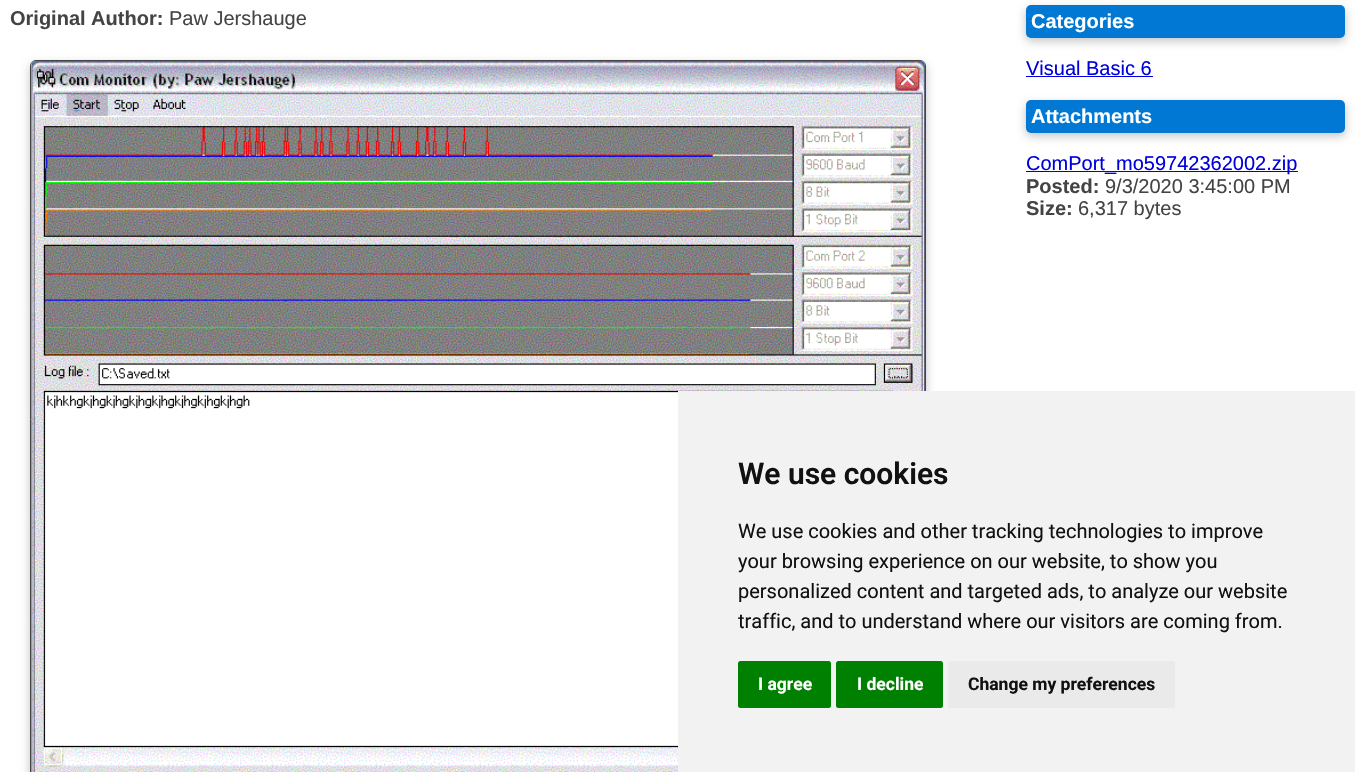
#include "include/core/SkBlurTypes.h"
#include "include/core/SkCanvas.h"
#include "include/core/SkData.h"
#include "include/core/SkFont.h"
#include "include/core/SkFontMgr.h"
#include "include/core/SkImage.h"
#include "include/core/SkMaskFilter.h"
#include "include/core/SkPaint.h"
#include "include/core/SkPathBuilder.h"
#include "include/core/SkTextBlob.h"
#include "include/effects/SkDashPathEffect.h"
#include "include/effects/SkGradientShader.h"
#include "include/utils/SkParsePath.h"

extern sk_sp<SkFontMgr> fontMgr;

static SkFont font(const char* family, int weight, float size, bool italic = false) {
    SkFontStyle style(weight, SkFontStyle::kNormal_Width,
        italic ? SkFontStyle::kItalic_Slant : SkFontStyle::kUpright_Slant);
    SkFont result(fontMgr->matchFamilyStyle(family, style), size);
    result.setSubpixel(true);
    return result;
}

static void drawLabel(SkCanvas* canvas, const char* s, float x, float y, const SkFont& font, SkColor color) {
    SkPaint ink(SkColor4f::FromColor(color));
    ink.setAntiAlias(true);
    canvas->drawString(s, x, y, font, ink);
}

static void fillRect(SkCanvas* canvas, float x, float y, float w, float h, SkColor color) {
    SkPaint ink(SkColor4f::FromColor(color));
    ink.setAntiAlias(true);
    canvas->drawRect(SkRect::MakeXYWH(x, y, w, h), ink);
}

static void fillRRect(SkCanvas* canvas, float x, float y, float w, float h, float radius, SkColor color) {
    SkPaint ink(SkColor4f::FromColor(color));
    ink.setAntiAlias(true);
    canvas->drawRoundRect(SkRect::MakeXYWH(x, y, w, h), radius, radius, ink);
}

static void drawPhoto(SkCanvas* canvas, const char* path, float x, float y, float w, float h) {
    auto image = SkImages::DeferredFromEncodedData(SkData::MakeFromFileName(path));
    canvas->drawImageRect(image, SkRect::MakeXYWH(x, y, w, h), SkSamplingOptions());
}

void draw(SkCanvas* canvas) {
    SkPaint paint;
    paint.setAntiAlias(true);
    canvas->clear(0xFFFFFFFF);
    SkFont font1 = font("Liberation Sans", 700, 20);
    drawLabel(canvas, "Original Author:", 10, 25, font1, 0xFF444444);
    SkFont font2 = font("Liberation Sans", 400, 20);
    drawLabel(canvas, "Paw Jershauge", 169, 25, font2, 0xFF444444);
    paint.setColor(0x3D000000);
    paint.setMaskFilter(SkMaskFilter::MakeBlur(kNormal_SkBlurStyle, 5));
    canvas->drawRoundRect(SkRect::MakeXYWH(30, 64, 896, 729), 6, 6, paint);
    paint.setMaskFilter(nullptr);
    paint.setStroke(true);
    paint.setStrokeWidth(1);
    paint.setColor(0xFF444444);
    canvas->drawRoundRect(SkRect::MakeXYWH(30.5f, 60.5f, 895, 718), 5.5f, 5.5f, paint);
    drawPhoto(canvas, "assets/img1.png", 31, 61, 894, 711);
    paint.setStroke(false);
    paint.setColor(0x3D000000);
    paint.setMaskFilter(SkMaskFilter::MakeBlur(kNormal_SkBlurStyle, 5));
    canvas->drawRoundRect(SkRect::MakeXYWH(1026, 9, 319, 32), 5, 5, paint);
    paint.setMaskFilter(nullptr);
    fillRRect(canvas, 1026, 5, 319, 33, 5, 0xFF0078D4);
    drawLabel(canvas, "Categories", 1031, 28, font1, 0xFFFFFFFF);
    drawLabel(canvas, "Visual Basic 6", 1026, 75, font2, 0xFF0000DD);
    fillRect(canvas, 1026, 76, 127, 1, 0xFF0000DD);
    paint.setMaskFilter(SkMaskFilter::MakeBlur(kNormal_SkBlurStyle, 5));
    canvas->drawRoundRect(SkRect::MakeXYWH(1026, 104, 319, 32), 5, 5, paint);
    paint.setMaskFilter(nullptr);
    fillRRect(canvas, 1026, 100, 319, 33, 5, 0xFF0078D4);
    drawLabel(canvas, "Attachments", 1031, 123, font1, 0xFFFFFFFF);
    fillRect(canvas, 1026, 171, 272, 1, 0xFF0000DD);
    drawLabel(canvas, "ComPort_mo59742362002.zip", 1026, 170, font2, 0xFF0000DD);
    drawLabel(canvas, "Posted:", 1026, 193, font1, 0xFF444444);
    drawLabel(canvas, "9/3/2020 3:45:00 PM", 1105, 193, font2, 0xFF444444);
    drawLabel(canvas, "Size:", 1026, 215, font1, 0xFF444444);
    drawLabel(canvas, "6,317 bytes", 1078, 215, font2, 0xFF444444);
    fillRect(canvas, 678, 391, 677, 381, 0xFFF2F2F2);
    SkFont font3 = font("Roboto", 600, 30);
    drawLabel(canvas, "We use cookies", 738, 484, font3, 0xFF111111);
    SkFont font4 = font("Roboto", 400, 20);
    drawLabel(canvas, "We use cookies and other tracking technologies to improve", 738, 538, font4, 0xFF111111);
    drawLabel(canvas, "your browsing experience on our website, to show you", 738, 568, font4, 0xFF111111);
    drawLabel(canvas, "personalized content and targeted ads, to analyze our website", 738, 598, font4, 0xFF111111);
    drawLabel(canvas, "traffic, and to understand where our visitors are coming from.", 738, 628, font4, 0xFF111111);
    fillRRect(canvas, 738, 661, 93, 47, 2.5f, 0xFF008000);
    SkFont font5 = font("Roboto", 700, 17.5f);
    drawLabel(canvas, "I agree", 758, 690, font5, 0xFFFFFFFF);
    fillRRect(canvas, 836, 661, 107, 47, 2.5f, 0xFF008000);
    drawLabel(canvas, "I decline", 857, 690, font5, 0xFFFFFFFF);
    fillRRect(canvas, 948, 661, 227, 47, 2.5f, 0xFFEAEAEA);
    drawLabel(canvas, "Change my preferences", 968, 690, font5, 0xFF111111);
}
